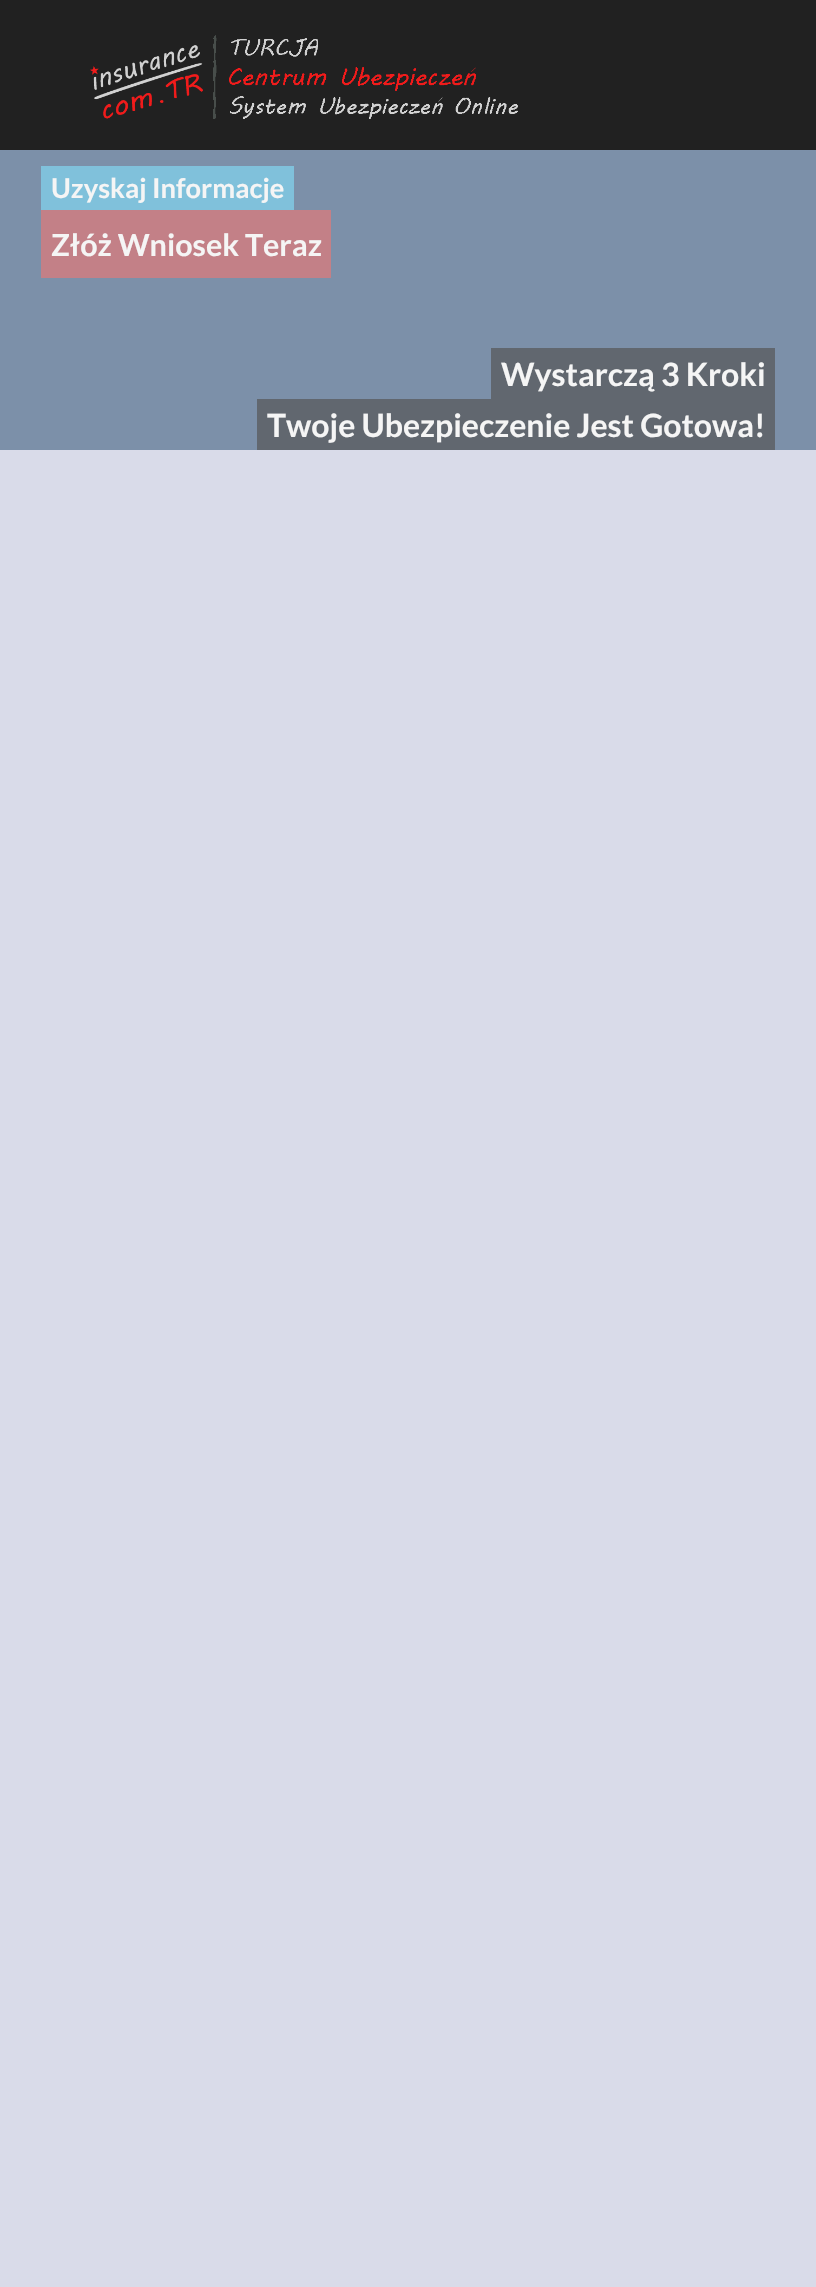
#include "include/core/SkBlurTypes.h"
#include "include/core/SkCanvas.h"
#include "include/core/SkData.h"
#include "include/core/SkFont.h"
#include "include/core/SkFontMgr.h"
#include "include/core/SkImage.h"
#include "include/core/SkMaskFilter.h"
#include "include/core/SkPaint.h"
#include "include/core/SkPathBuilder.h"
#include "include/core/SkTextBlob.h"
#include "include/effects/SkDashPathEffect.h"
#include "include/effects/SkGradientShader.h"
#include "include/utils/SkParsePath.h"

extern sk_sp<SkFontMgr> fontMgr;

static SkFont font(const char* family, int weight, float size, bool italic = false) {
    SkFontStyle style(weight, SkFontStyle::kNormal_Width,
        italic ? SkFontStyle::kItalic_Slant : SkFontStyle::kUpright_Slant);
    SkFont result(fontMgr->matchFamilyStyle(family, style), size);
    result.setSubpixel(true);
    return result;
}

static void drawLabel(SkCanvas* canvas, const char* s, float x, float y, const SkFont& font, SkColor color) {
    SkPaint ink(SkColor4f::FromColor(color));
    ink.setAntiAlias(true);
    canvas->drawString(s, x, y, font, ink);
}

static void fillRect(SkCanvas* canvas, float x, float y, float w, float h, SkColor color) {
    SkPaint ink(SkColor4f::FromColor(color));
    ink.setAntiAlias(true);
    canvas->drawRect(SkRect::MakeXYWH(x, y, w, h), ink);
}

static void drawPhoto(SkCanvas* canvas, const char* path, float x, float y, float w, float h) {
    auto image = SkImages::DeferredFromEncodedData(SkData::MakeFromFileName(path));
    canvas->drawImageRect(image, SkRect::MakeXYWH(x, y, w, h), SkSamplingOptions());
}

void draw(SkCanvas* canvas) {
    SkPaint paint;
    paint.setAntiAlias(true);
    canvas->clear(0xFF212121);
    drawPhoto(canvas, "assets/img1.png", 90, 35, 428, 84);
    fillRect(canvas, 0, 150, 816, 300, 0xFF7C90A9);
    fillRect(canvas, 41, 166, 253, 44, 0xFF80C1DB);
    SkFont font1 = font("Lato", 700, 27.25f);
    drawLabel(canvas, "Uzyskaj Informacje", 51, 198, font1, 0xFFF5F5F5);
    fillRect(canvas, 41, 210, 290, 68, 0xFFC38087);
    SkFont font2 = font("Lato", 700, 30.5f);
    drawLabel(canvas, "Złóż Wniosek Teraz", 51, 256, font2, 0xFFF5F5F5);
    fillRect(canvas, 491, 348, 284, 51, 0xFF61676F);
    SkFont font3 = font("Lato", 700, 32);
    drawLabel(canvas, "Wystarczą 3 Kroki", 501, 386, font3, 0xFFF5F5F5);
    fillRect(canvas, 257, 399, 518, 51, 0xFF61676F);
    drawLabel(canvas, "Twoje Ubezpieczenie Jest Gotowa!", 267, 437, font3, 0xFFF5F5F5);
    fillRect(canvas, 0, 450, 816, 1837, 0xFFD9DBE9);
}
